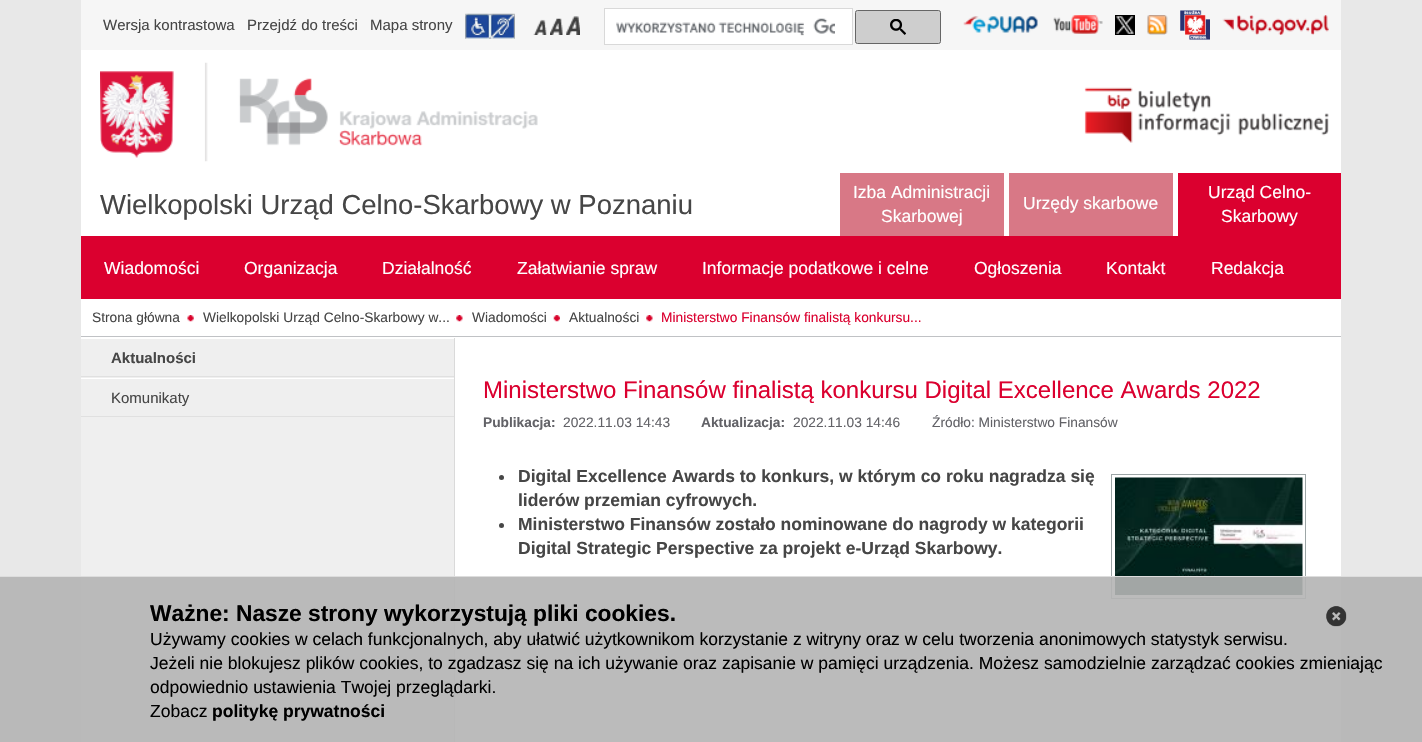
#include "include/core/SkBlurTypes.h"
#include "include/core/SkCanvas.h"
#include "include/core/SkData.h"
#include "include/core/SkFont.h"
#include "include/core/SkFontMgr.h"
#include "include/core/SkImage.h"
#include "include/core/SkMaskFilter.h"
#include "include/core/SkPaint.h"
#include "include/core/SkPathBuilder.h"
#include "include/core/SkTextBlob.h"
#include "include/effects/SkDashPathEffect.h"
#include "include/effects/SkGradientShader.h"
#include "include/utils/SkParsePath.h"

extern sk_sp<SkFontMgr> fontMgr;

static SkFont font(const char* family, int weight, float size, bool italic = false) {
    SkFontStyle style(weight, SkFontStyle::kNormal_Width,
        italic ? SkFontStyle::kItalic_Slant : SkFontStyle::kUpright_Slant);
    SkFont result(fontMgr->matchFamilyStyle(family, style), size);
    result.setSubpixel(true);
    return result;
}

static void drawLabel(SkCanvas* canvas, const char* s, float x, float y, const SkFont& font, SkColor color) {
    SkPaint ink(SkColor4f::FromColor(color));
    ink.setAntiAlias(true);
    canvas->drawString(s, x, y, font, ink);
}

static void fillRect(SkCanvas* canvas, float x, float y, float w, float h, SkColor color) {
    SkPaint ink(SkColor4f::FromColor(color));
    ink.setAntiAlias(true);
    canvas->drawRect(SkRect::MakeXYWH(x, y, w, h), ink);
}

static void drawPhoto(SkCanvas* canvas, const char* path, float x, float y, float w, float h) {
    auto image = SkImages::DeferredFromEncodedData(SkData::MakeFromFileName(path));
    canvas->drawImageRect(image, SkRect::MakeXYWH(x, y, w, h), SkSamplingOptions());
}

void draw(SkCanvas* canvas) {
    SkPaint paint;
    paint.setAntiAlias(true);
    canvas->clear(0xFFE8E8E8);
    fillRect(canvas, 81, 50, 1260, 692, 0xFFFFFFFF);
    fillRect(canvas, 81, 0, 1260, 50, 0xFFF6F6F6);
    SkFont font1 = font("Liberation Sans", 400, 15);
    drawLabel(canvas, "Wersja kontrastowa", 103, 30, font1, 0xFF464646);
    drawLabel(canvas, "Przejdź do treści", 247, 30, font1, 0xFF464646);
    drawLabel(canvas, "Mapa strony", 370, 30, font1, 0xFF464646);
    drawPhoto(canvas, "assets/img1.png", 465, 13, 50, 26);
    drawPhoto(canvas, "assets/img2.png", 533, 19, 14, 16);
    drawPhoto(canvas, "assets/img3.png", 550, 18, 13, 17);
    drawPhoto(canvas, "assets/img4.png", 566, 16, 14, 19);
    paint.setColor(0xFFFFFFFF);
    canvas->drawRect(SkRect::MakeXYWH(604.5f, 8.5f, 248, 36), paint);
    paint.setStroke(true);
    paint.setStrokeWidth(1);
    paint.setColor(0xFFD9D9D9);
    canvas->drawRect(SkRect::MakeXYWH(604.5f, 8.5f, 248, 36), paint);
    drawPhoto(canvas, "assets/img5.png", 616, 18, 219, 18);
    paint.setStroke(false);
    paint.setColor(0xFFCECECE);
    canvas->drawRoundRect(SkRect::MakeXYWH(855.5f, 10.5f, 85, 33), 2, 2, paint);
    paint.setStroke(true);
    paint.setColor(0xFF666666);
    canvas->drawRoundRect(SkRect::MakeXYWH(855.5f, 10.5f, 85, 33), 2, 2, paint);
    drawPhoto(canvas, "assets/img6.png", 890, 19, 16, 16);
    drawPhoto(canvas, "assets/img7.png", 963, 16, 75, 17);
    drawPhoto(canvas, "assets/img8.png", 1053, 15, 50, 19);
    drawPhoto(canvas, "assets/img9.png", 1115, 15, 20, 20);
    drawPhoto(canvas, "assets/img10.png", 1147, 15, 21, 20);
    drawPhoto(canvas, "assets/img11.png", 1180, 10, 30, 30);
    drawPhoto(canvas, "assets/img12.png", 1222, 15, 107, 20);
    drawPhoto(canvas, "assets/img13.png", 1084, 87, 245, 56);
    drawPhoto(canvas, "assets/img14.png", 100, 62, 438, 100);
    SkFont font2 = font("Liberation Sans", 400, 27.5f);
    drawLabel(canvas, "Wielkopolski Urząd Celno-Skarbowy w Poznaniu", 100, 214, font2, 0xFF464646);
    fillRect(canvas, 1178, 173, 163, 63, 0xFFDB002F);
    fillRect(canvas, 840, 173, 164, 63, 0xFFD87886);
    SkFont font3 = font("Liberation Sans", 400, 17.5f);
    drawLabel(canvas, "Izba Administracji", 853, 198, font3, 0xFFFFFFFF);
    drawLabel(canvas, "Skarbowej", 881, 222, font3, 0xFFFFFFFF);
    fillRect(canvas, 1009, 173, 164, 63, 0xFFD87886);
    drawLabel(canvas, "Urzędy skarbowe", 1023, 209, font3, 0xFFFFFFFF);
    drawLabel(canvas, "Urząd Celno-", 1208, 198, font3, 0xFFFFFFFF);
    drawLabel(canvas, "Skarbowy", 1221, 222, font3, 0xFFFFFFFF);
    fillRect(canvas, 81, 236, 1260, 63, 0xFFDB002F);
    drawLabel(canvas, "Wiadomości", 104, 274, font3, 0xFFFFFFFF);
    drawLabel(canvas, "Organizacja", 244, 274, font3, 0xFFFFFFFF);
    drawLabel(canvas, "Działalność", 382, 274, font3, 0xFFFFFFFF);
    drawLabel(canvas, "Załatwianie spraw", 517, 274, font3, 0xFFFFFFFF);
    drawLabel(canvas, "Informacje podatkowe i celne", 702, 274, font3, 0xFFFFFFFF);
    drawLabel(canvas, "Ogłoszenia", 974, 274, font3, 0xFFFFFFFF);
    drawLabel(canvas, "Kontakt", 1106, 274, font3, 0xFFFFFFFF);
    drawLabel(canvas, "Redakcja", 1211, 274, font3, 0xFFFFFFFF);
    fillRect(canvas, 81, 336, 1260, 1, 0xFFC0C2C5);
    SkFont font4 = font("Liberation Sans", 400, 13.75f);
    drawLabel(canvas, "Strona główna", 92, 322, font4, 0xFF464646);
    drawPhoto(canvas, "assets/img15.png", 187, 315, 7, 7);
    drawLabel(canvas, "Wielkopolski Urząd Celno-Skarbowy w...", 203, 322, font4, 0xFF464646);
    drawPhoto(canvas, "assets/img16.png", 456, 315, 7, 7);
    drawLabel(canvas, "Wiadomości", 472, 322, font4, 0xFF464646);
    drawPhoto(canvas, "assets/img17.png", 553, 315, 7, 7);
    drawLabel(canvas, "Aktualności", 569, 322, font4, 0xFF464646);
    drawPhoto(canvas, "assets/img16.png", 646, 315, 7, 7);
    drawLabel(canvas, "Ministerstwo Finansów finalistą konkursu...", 661, 322, font4, 0xFFDB002F);
    fillRect(canvas, 81, 339, 373, 403, 0xFFEFEFEF);
    fillRect(canvas, 454, 338, 1, 404, 0xFFDADADA);
    fillRect(canvas, 81, 376, 373, 1, 0xFFE0E0E0);
    SkFont font5 = font("Liberation Sans", 700, 15);
    drawLabel(canvas, "Aktualności", 111, 363, font5, 0xFF464646);
    fillRect(canvas, 81, 378, 373, 1, 0xFFFFFFFF);
    fillRect(canvas, 81, 416, 373, 1, 0xFFE0E0E0);
    drawLabel(canvas, "Komunikaty", 111, 403, font1, 0xFF464646);
    SkFont font6 = font("Liberation Sans", 400, 24);
    drawLabel(canvas, "Ministerstwo Finansów finalistą konkursu Digital Excellence Awards 2022", 483, 398, font6, 0xFFDB002F);
    SkFont font7 = font("Liberation Sans", 700, 13.75f);
    drawLabel(canvas, "Publikacja:", 483, 427, font7, 0xFF626267);
    drawLabel(canvas, "2022.11.03 14:43", 563, 427, font4, 0xFF626267);
    drawLabel(canvas, "Aktualizacja:", 701, 427, font7, 0xFF626267);
    drawLabel(canvas, "2022.11.03 14:46", 793, 427, font4, 0xFF626267);
    drawLabel(canvas, "Źródło: Ministerstwo Finansów", 932, 427, font4, 0xFF626267);
    paint.setStroke(false);
    paint.setColor(0xFF464646);
    canvas->drawCircle(501.5f, 477.5f, 2.5f, paint);
    SkFont font8 = font("Liberation Sans", 700, 17.5f);
    drawLabel(canvas, "Digital Excellence Awards to konkurs, w którym co roku nagradza się", 518, 482, font8, 0xFF464646);
    drawLabel(canvas, "liderów przemian cyfrowych.", 518, 506, font8, 0xFF464646);
    canvas->drawCircle(501.5f, 525.5f, 2.5f, paint);
    drawLabel(canvas, "Ministerstwo Finansów zostało nominowane do nagrody w kategorii", 518, 530, font8, 0xFF464646);
    drawLabel(canvas, "Digital Strategic Perspective za projekt e-Urząd Skarbowy.", 518, 554, font8, 0xFF464646);
    paint.setStroke(true);
    paint.setColor(0xFF9CA5A6);
    canvas->drawRect(SkRect::MakeXYWH(1111.5f, 474.5f, 194, 124), paint);
    drawPhoto(canvas, "assets/img18.png", 1115, 477, 188, 118);
    fillRect(canvas, 0, 577, 1422, 165, 0xE6B4B4B4);
    fillRect(canvas, 0, 576, 1422, 1, 0xFFDDDDDD);
    SkFont font9 = font("Liberation Sans", 700, 22.75f);
    drawLabel(canvas, "Ważne: Nasze strony wykorzystują pliki cookies.", 150, 621, font9, 0xFF000000);
    drawPhoto(canvas, "assets/img19.png", 1326, 606, 21, 21);
    drawLabel(canvas, "Używamy cookies w celach funkcjonalnych, aby ułatwić użytkownikom korzystanie z witryny oraz w celu tworzenia anonimowych statystyk serwisu.", 150, 645, font3, 0xFF000000);
    drawLabel(canvas, "Jeżeli nie blokujesz plików cookies, to zgadzasz się na ich używanie oraz zapisanie w pamięci urządzenia. Możesz samodzielnie zarządzać cookies zmieniając", 150, 669, font3, 0xFF000000);
    drawLabel(canvas, "odpowiednio ustawienia Twojej przeglądarki.", 150, 693, font3, 0xFF000000);
    drawLabel(canvas, "Zobacz", 150, 717, font3, 0xFF000000);
    drawLabel(canvas, "politykę prywatności", 212, 717, font8, 0xFF000000);
}
